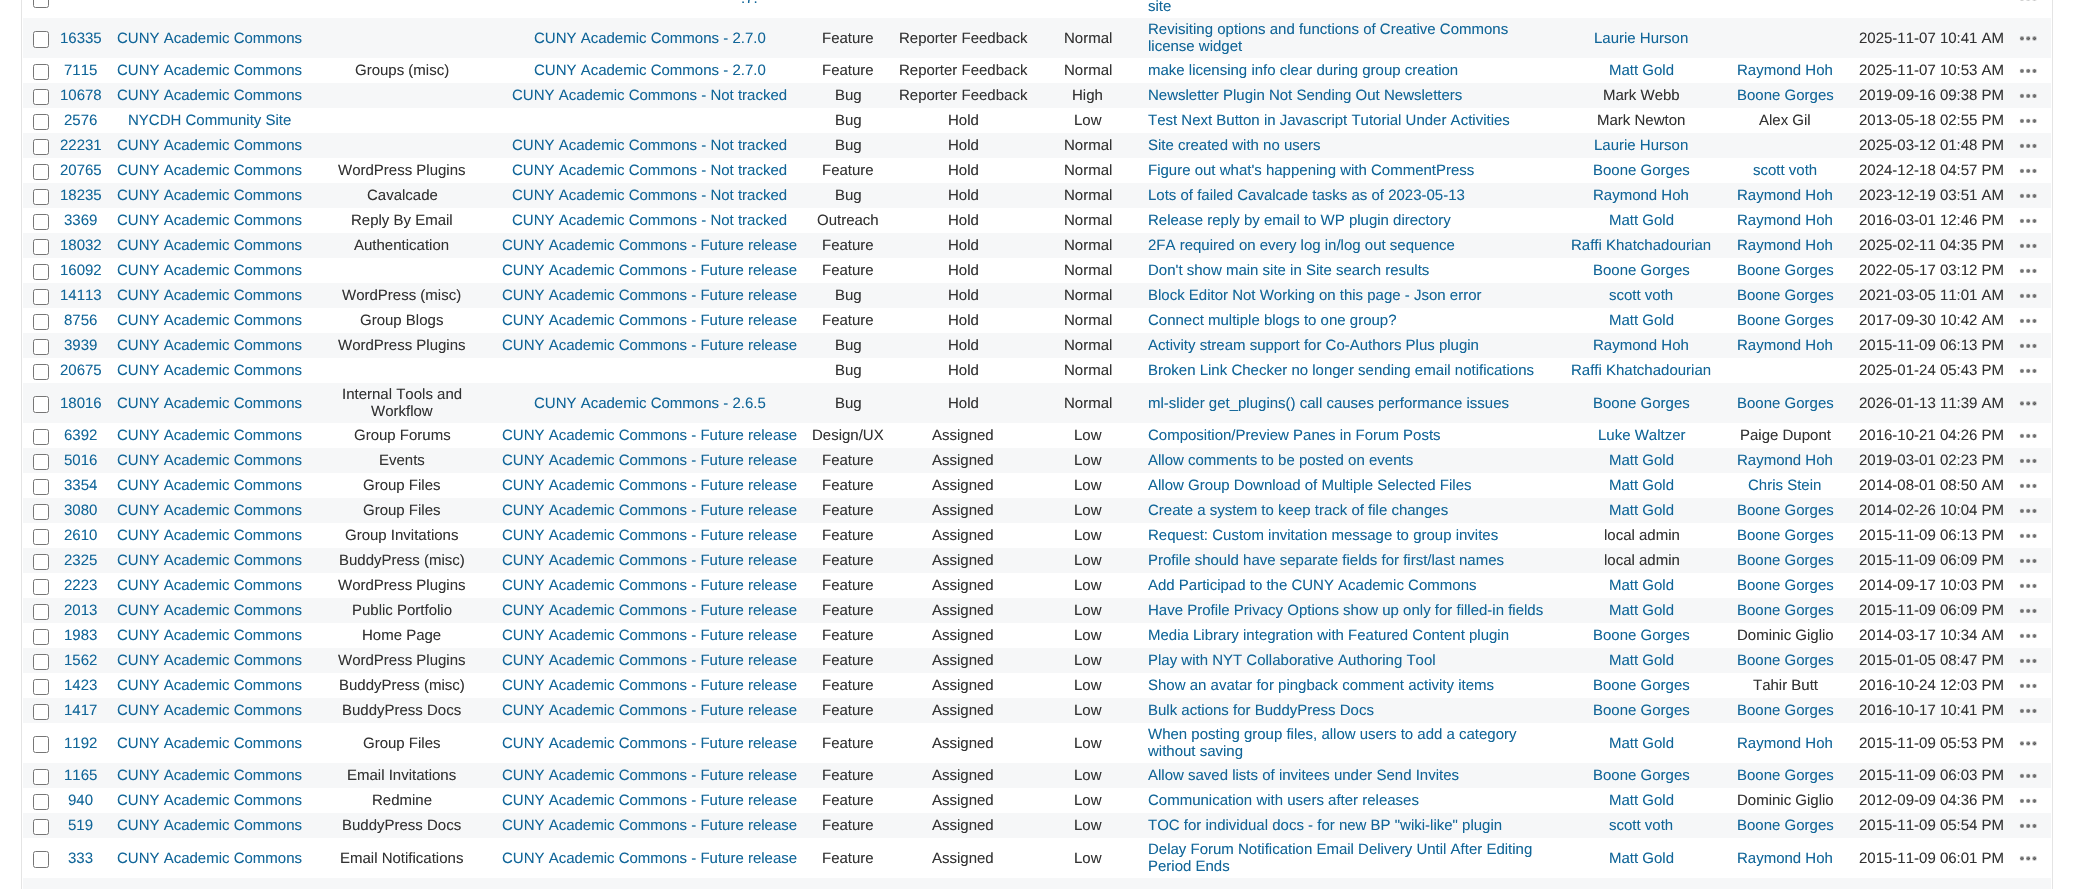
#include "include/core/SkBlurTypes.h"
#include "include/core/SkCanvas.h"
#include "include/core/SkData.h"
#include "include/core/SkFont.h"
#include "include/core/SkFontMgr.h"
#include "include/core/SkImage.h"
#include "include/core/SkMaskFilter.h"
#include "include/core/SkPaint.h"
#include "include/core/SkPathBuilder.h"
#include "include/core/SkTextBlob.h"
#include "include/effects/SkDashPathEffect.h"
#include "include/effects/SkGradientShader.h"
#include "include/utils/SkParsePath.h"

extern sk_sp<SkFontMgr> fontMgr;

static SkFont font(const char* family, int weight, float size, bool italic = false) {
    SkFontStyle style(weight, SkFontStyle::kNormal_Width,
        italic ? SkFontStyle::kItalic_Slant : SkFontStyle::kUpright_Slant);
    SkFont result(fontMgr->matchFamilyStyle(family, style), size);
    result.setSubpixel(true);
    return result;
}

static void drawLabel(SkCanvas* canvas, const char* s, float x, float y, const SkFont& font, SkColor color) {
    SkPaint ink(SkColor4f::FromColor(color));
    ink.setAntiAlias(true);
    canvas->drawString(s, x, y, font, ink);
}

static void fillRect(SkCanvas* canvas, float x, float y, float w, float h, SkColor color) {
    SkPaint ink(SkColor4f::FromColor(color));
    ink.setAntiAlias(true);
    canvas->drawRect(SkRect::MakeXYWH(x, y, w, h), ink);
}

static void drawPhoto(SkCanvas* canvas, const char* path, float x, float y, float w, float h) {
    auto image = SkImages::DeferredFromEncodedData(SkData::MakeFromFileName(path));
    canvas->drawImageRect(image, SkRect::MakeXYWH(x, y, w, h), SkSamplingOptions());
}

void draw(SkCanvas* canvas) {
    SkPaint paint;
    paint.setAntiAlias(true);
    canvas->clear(0xFFFFFFFF);
    paint.setStroke(true);
    paint.setStrokeWidth(1);
    paint.setColor(0xFFE4E4E4);
    canvas->drawRect(SkRect::MakeXYWH(21.5f, -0.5f, 2031, 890), paint);
    paint.setColor(0xFF767676);
    canvas->drawRoundRect(SkRect::MakeXYWH(33.5f, -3.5f, 15, 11), 2, 2, paint);
    SkFont font1 = font("Liberation Sans", 400, 15);
    drawLabel(canvas, ".7.", 741, 3, font1, 0xFF116699);
    drawLabel(canvas, "site", 1148, 11, font1, 0xFF116699);
    drawPhoto(canvas, "assets/img1.png", 2020, 0, 17, 1);
    fillRect(canvas, 23, 18, 2028, 40, 0xFFF6F7F8);
    paint.setStroke(false);
    paint.setColor(0xFFFFFFFF);
    canvas->drawRoundRect(SkRect::MakeXYWH(33.5f, 31.5f, 15, 16), 2, 2, paint);
    paint.setStroke(true);
    paint.setColor(0xFF767676);
    canvas->drawRoundRect(SkRect::MakeXYWH(33.5f, 31.5f, 15, 16), 2, 2, paint);
    drawLabel(canvas, "16335", 60, 43, font1, 0xFF116699);
    drawLabel(canvas, "CUNY Academic Commons", 117, 43, font1, 0xFF116699);
    drawLabel(canvas, "CUNY Academic Commons - 2.7.0", 534, 43, font1, 0xFF116699);
    drawLabel(canvas, "Feature", 822, 43, font1, 0xFF333333);
    drawLabel(canvas, "Reporter Feedback", 899, 43, font1, 0xFF333333);
    drawLabel(canvas, "Normal", 1064, 43, font1, 0xFF333333);
    drawLabel(canvas, "Revisiting options and functions of Creative Commons", 1148, 34, font1, 0xFF116699);
    drawLabel(canvas, "license widget", 1148, 51, font1, 0xFF116699);
    drawLabel(canvas, "Laurie Hurson", 1594, 43, font1, 0xFF116699);
    drawLabel(canvas, "2025-11-07 10:41 AM", 1859, 43, font1, 0xFF333333);
    drawPhoto(canvas, "assets/img2.png", 2019, 36, 18, 5);
    canvas->drawRoundRect(SkRect::MakeXYWH(33.5f, 64.5f, 15, 15), 2, 2, paint);
    drawLabel(canvas, "7115", 64, 75, font1, 0xFF116699);
    drawLabel(canvas, "CUNY Academic Commons", 117, 75, font1, 0xFF116699);
    drawLabel(canvas, "Groups (misc)", 355, 75, font1, 0xFF333333);
    drawLabel(canvas, "CUNY Academic Commons - 2.7.0", 534, 75, font1, 0xFF116699);
    drawLabel(canvas, "Feature", 822, 75, font1, 0xFF333333);
    drawLabel(canvas, "Reporter Feedback", 899, 75, font1, 0xFF333333);
    drawLabel(canvas, "Normal", 1064, 75, font1, 0xFF333333);
    drawLabel(canvas, "make licensing info clear during group creation", 1148, 75, font1, 0xFF116699);
    drawLabel(canvas, "Matt Gold", 1609, 75, font1, 0xFF116699);
    drawLabel(canvas, "Raymond Hoh", 1737, 75, font1, 0xFF116699);
    drawLabel(canvas, "2025-11-07 10:53 AM", 1859, 75, font1, 0xFF333333);
    drawPhoto(canvas, "assets/img3.png", 2019, 68, 18, 5);
    fillRect(canvas, 23, 83, 2028, 25, 0xFFF6F7F8);
    paint.setStroke(false);
    paint.setColor(0xFFFFFFFF);
    canvas->drawRoundRect(SkRect::MakeXYWH(33.5f, 89.5f, 15, 15), 2, 2, paint);
    paint.setStroke(true);
    paint.setColor(0xFF767676);
    canvas->drawRoundRect(SkRect::MakeXYWH(33.5f, 89.5f, 15, 15), 2, 2, paint);
    drawLabel(canvas, "10678", 60, 100, font1, 0xFF116699);
    drawLabel(canvas, "CUNY Academic Commons", 117, 100, font1, 0xFF116699);
    drawLabel(canvas, "CUNY Academic Commons - Not tracked", 512, 100, font1, 0xFF116699);
    drawLabel(canvas, "Bug", 835, 100, font1, 0xFF333333);
    drawLabel(canvas, "Reporter Feedback", 899, 100, font1, 0xFF333333);
    drawLabel(canvas, "High", 1072, 100, font1, 0xFF333333);
    drawLabel(canvas, "Newsletter Plugin Not Sending Out Newsletters", 1148, 100, font1, 0xFF116699);
    drawLabel(canvas, "Mark Webb", 1603, 100, font1, 0xFF333333);
    drawLabel(canvas, "Boone Gorges", 1737, 100, font1, 0xFF116699);
    drawLabel(canvas, "2019-09-16 09:38 PM", 1859, 100, font1, 0xFF333333);
    drawPhoto(canvas, "assets/img4.png", 2019, 93, 18, 5);
    canvas->drawRoundRect(SkRect::MakeXYWH(33.5f, 114.5f, 15, 15), 2, 2, paint);
    drawLabel(canvas, "2576", 64, 125, font1, 0xFF116699);
    drawLabel(canvas, "NYCDH Community Site", 128, 125, font1, 0xFF116699);
    drawLabel(canvas, "Bug", 835, 125, font1, 0xFF333333);
    drawLabel(canvas, "Hold", 948, 125, font1, 0xFF333333);
    drawLabel(canvas, "Low", 1074, 125, font1, 0xFF333333);
    drawLabel(canvas, "Test Next Button in Javascript Tutorial Under Activities", 1148, 125, font1, 0xFF116699);
    drawLabel(canvas, "Mark Newton", 1597, 125, font1, 0xFF333333);
    drawLabel(canvas, "Alex Gil", 1759, 125, font1, 0xFF333333);
    drawLabel(canvas, "2013-05-18 02:55 PM", 1859, 125, font1, 0xFF333333);
    drawPhoto(canvas, "assets/img3.png", 2019, 118, 18, 5);
    fillRect(canvas, 23, 133, 2028, 25, 0xFFF6F7F8);
    paint.setStroke(false);
    paint.setColor(0xFFFFFFFF);
    canvas->drawRoundRect(SkRect::MakeXYWH(33.5f, 139.5f, 15, 15), 2, 2, paint);
    paint.setStroke(true);
    paint.setColor(0xFF767676);
    canvas->drawRoundRect(SkRect::MakeXYWH(33.5f, 139.5f, 15, 15), 2, 2, paint);
    drawLabel(canvas, "22231", 60, 150, font1, 0xFF116699);
    drawLabel(canvas, "CUNY Academic Commons", 117, 150, font1, 0xFF116699);
    drawLabel(canvas, "CUNY Academic Commons - Not tracked", 512, 150, font1, 0xFF116699);
    drawLabel(canvas, "Bug", 835, 150, font1, 0xFF333333);
    drawLabel(canvas, "Hold", 948, 150, font1, 0xFF333333);
    drawLabel(canvas, "Normal", 1064, 150, font1, 0xFF333333);
    drawLabel(canvas, "Site created with no users", 1148, 150, font1, 0xFF116699);
    drawLabel(canvas, "Laurie Hurson", 1594, 150, font1, 0xFF116699);
    drawLabel(canvas, "2025-03-12 01:48 PM", 1859, 150, font1, 0xFF333333);
    drawPhoto(canvas, "assets/img4.png", 2019, 143, 18, 5);
    canvas->drawRoundRect(SkRect::MakeXYWH(33.5f, 164.5f, 15, 15), 2, 2, paint);
    drawLabel(canvas, "20765", 60, 175, font1, 0xFF116699);
    drawLabel(canvas, "CUNY Academic Commons", 117, 175, font1, 0xFF116699);
    drawLabel(canvas, "WordPress Plugins", 338, 175, font1, 0xFF333333);
    drawLabel(canvas, "CUNY Academic Commons - Not tracked", 512, 175, font1, 0xFF116699);
    drawLabel(canvas, "Feature", 822, 175, font1, 0xFF333333);
    drawLabel(canvas, "Hold", 948, 175, font1, 0xFF333333);
    drawLabel(canvas, "Normal", 1064, 175, font1, 0xFF333333);
    drawLabel(canvas, "Figure out what's happening with CommentPress", 1148, 175, font1, 0xFF116699);
    drawLabel(canvas, "Boone Gorges", 1593, 175, font1, 0xFF116699);
    drawLabel(canvas, "scott voth", 1753, 175, font1, 0xFF116699);
    drawLabel(canvas, "2024-12-18 04:57 PM", 1859, 175, font1, 0xFF333333);
    drawPhoto(canvas, "assets/img5.png", 2019, 168, 18, 5);
    fillRect(canvas, 23, 183, 2028, 25, 0xFFF6F7F8);
    paint.setStroke(false);
    paint.setColor(0xFFFFFFFF);
    canvas->drawRoundRect(SkRect::MakeXYWH(33.5f, 189.5f, 15, 15), 2, 2, paint);
    paint.setStroke(true);
    paint.setColor(0xFF767676);
    canvas->drawRoundRect(SkRect::MakeXYWH(33.5f, 189.5f, 15, 15), 2, 2, paint);
    drawLabel(canvas, "18235", 60, 200, font1, 0xFF116699);
    drawLabel(canvas, "CUNY Academic Commons", 117, 200, font1, 0xFF116699);
    drawLabel(canvas, "Cavalcade", 367, 200, font1, 0xFF333333);
    drawLabel(canvas, "CUNY Academic Commons - Not tracked", 512, 200, font1, 0xFF116699);
    drawLabel(canvas, "Bug", 835, 200, font1, 0xFF333333);
    drawLabel(canvas, "Hold", 948, 200, font1, 0xFF333333);
    drawLabel(canvas, "Normal", 1064, 200, font1, 0xFF333333);
    drawLabel(canvas, "Lots of failed Cavalcade tasks as of 2023-05-13", 1148, 200, font1, 0xFF116699);
    drawLabel(canvas, "Raymond Hoh", 1593, 200, font1, 0xFF116699);
    drawLabel(canvas, "Raymond Hoh", 1737, 200, font1, 0xFF116699);
    drawLabel(canvas, "2023-12-19 03:51 AM", 1859, 200, font1, 0xFF333333);
    drawPhoto(canvas, "assets/img4.png", 2019, 193, 18, 5);
    canvas->drawRoundRect(SkRect::MakeXYWH(33.5f, 214.5f, 15, 15), 2, 2, paint);
    drawLabel(canvas, "3369", 64, 225, font1, 0xFF116699);
    drawLabel(canvas, "CUNY Academic Commons", 117, 225, font1, 0xFF116699);
    drawLabel(canvas, "Reply By Email", 351, 225, font1, 0xFF333333);
    drawLabel(canvas, "CUNY Academic Commons - Not tracked", 512, 225, font1, 0xFF116699);
    drawLabel(canvas, "Outreach", 817, 225, font1, 0xFF333333);
    drawLabel(canvas, "Hold", 948, 225, font1, 0xFF333333);
    drawLabel(canvas, "Normal", 1064, 225, font1, 0xFF333333);
    drawLabel(canvas, "Release reply by email to WP plugin directory", 1148, 225, font1, 0xFF116699);
    drawLabel(canvas, "Matt Gold", 1609, 225, font1, 0xFF116699);
    drawLabel(canvas, "Raymond Hoh", 1737, 225, font1, 0xFF116699);
    drawLabel(canvas, "2016-03-01 12:46 PM", 1859, 225, font1, 0xFF333333);
    drawPhoto(canvas, "assets/img3.png", 2019, 218, 18, 5);
    fillRect(canvas, 23, 233, 2028, 25, 0xFFF6F7F8);
    paint.setStroke(false);
    paint.setColor(0xFFFFFFFF);
    canvas->drawRoundRect(SkRect::MakeXYWH(33.5f, 239.5f, 15, 15), 2, 2, paint);
    paint.setStroke(true);
    paint.setColor(0xFF767676);
    canvas->drawRoundRect(SkRect::MakeXYWH(33.5f, 239.5f, 15, 15), 2, 2, paint);
    drawLabel(canvas, "18032", 60, 250, font1, 0xFF116699);
    drawLabel(canvas, "CUNY Academic Commons", 117, 250, font1, 0xFF116699);
    drawLabel(canvas, "Authentication", 354, 250, font1, 0xFF333333);
    drawLabel(canvas, "CUNY Academic Commons - Future release", 502, 250, font1, 0xFF116699);
    drawLabel(canvas, "Feature", 822, 250, font1, 0xFF333333);
    drawLabel(canvas, "Hold", 948, 250, font1, 0xFF333333);
    drawLabel(canvas, "Normal", 1064, 250, font1, 0xFF333333);
    drawLabel(canvas, "2FA required on every log in/log out sequence", 1148, 250, font1, 0xFF116699);
    drawLabel(canvas, "Raffi Khatchadourian", 1571, 250, font1, 0xFF116699);
    drawLabel(canvas, "Raymond Hoh", 1737, 250, font1, 0xFF116699);
    drawLabel(canvas, "2025-02-11 04:35 PM", 1859, 250, font1, 0xFF333333);
    drawPhoto(canvas, "assets/img4.png", 2019, 243, 18, 5);
    canvas->drawRoundRect(SkRect::MakeXYWH(33.5f, 264.5f, 15, 15), 2, 2, paint);
    drawLabel(canvas, "16092", 60, 275, font1, 0xFF116699);
    drawLabel(canvas, "CUNY Academic Commons", 117, 275, font1, 0xFF116699);
    drawLabel(canvas, "CUNY Academic Commons - Future release", 502, 275, font1, 0xFF116699);
    drawLabel(canvas, "Feature", 822, 275, font1, 0xFF333333);
    drawLabel(canvas, "Hold", 948, 275, font1, 0xFF333333);
    drawLabel(canvas, "Normal", 1064, 275, font1, 0xFF333333);
    drawLabel(canvas, "Don't show main site in Site search results", 1148, 275, font1, 0xFF116699);
    drawLabel(canvas, "Boone Gorges", 1593, 275, font1, 0xFF116699);
    drawLabel(canvas, "Boone Gorges", 1737, 275, font1, 0xFF116699);
    drawLabel(canvas, "2022-05-17 03:12 PM", 1859, 275, font1, 0xFF333333);
    drawPhoto(canvas, "assets/img3.png", 2019, 268, 18, 5);
    fillRect(canvas, 23, 283, 2028, 25, 0xFFF6F7F8);
    paint.setStroke(false);
    paint.setColor(0xFFFFFFFF);
    canvas->drawRoundRect(SkRect::MakeXYWH(33.5f, 289.5f, 15, 15), 2, 2, paint);
    paint.setStroke(true);
    paint.setColor(0xFF767676);
    canvas->drawRoundRect(SkRect::MakeXYWH(33.5f, 289.5f, 15, 15), 2, 2, paint);
    drawLabel(canvas, "14113", 60, 300, font1, 0xFF116699);
    drawLabel(canvas, "CUNY Academic Commons", 117, 300, font1, 0xFF116699);
    drawLabel(canvas, "WordPress (misc)", 342, 300, font1, 0xFF333333);
    drawLabel(canvas, "CUNY Academic Commons - Future release", 502, 300, font1, 0xFF116699);
    drawLabel(canvas, "Bug", 835, 300, font1, 0xFF333333);
    drawLabel(canvas, "Hold", 948, 300, font1, 0xFF333333);
    drawLabel(canvas, "Normal", 1064, 300, font1, 0xFF333333);
    drawLabel(canvas, "Block Editor Not Working on this page - Json error", 1148, 300, font1, 0xFF116699);
    drawLabel(canvas, "scott voth", 1609, 300, font1, 0xFF116699);
    drawLabel(canvas, "Boone Gorges", 1737, 300, font1, 0xFF116699);
    drawLabel(canvas, "2021-03-05 11:01 AM", 1859, 300, font1, 0xFF333333);
    drawPhoto(canvas, "assets/img4.png", 2019, 293, 18, 5);
    canvas->drawRoundRect(SkRect::MakeXYWH(33.5f, 314.5f, 15, 15), 2, 2, paint);
    drawLabel(canvas, "8756", 64, 325, font1, 0xFF116699);
    drawLabel(canvas, "CUNY Academic Commons", 117, 325, font1, 0xFF116699);
    drawLabel(canvas, "Group Blogs", 360, 325, font1, 0xFF333333);
    drawLabel(canvas, "CUNY Academic Commons - Future release", 502, 325, font1, 0xFF116699);
    drawLabel(canvas, "Feature", 822, 325, font1, 0xFF333333);
    drawLabel(canvas, "Hold", 948, 325, font1, 0xFF333333);
    drawLabel(canvas, "Normal", 1064, 325, font1, 0xFF333333);
    drawLabel(canvas, "Connect multiple blogs to one group?", 1148, 325, font1, 0xFF116699);
    drawLabel(canvas, "Matt Gold", 1609, 325, font1, 0xFF116699);
    drawLabel(canvas, "Boone Gorges", 1737, 325, font1, 0xFF116699);
    drawLabel(canvas, "2017-09-30 10:42 AM", 1859, 325, font1, 0xFF333333);
    drawPhoto(canvas, "assets/img3.png", 2019, 318, 18, 5);
    fillRect(canvas, 23, 333, 2028, 25, 0xFFF6F7F8);
    paint.setStroke(false);
    paint.setColor(0xFFFFFFFF);
    canvas->drawRoundRect(SkRect::MakeXYWH(33.5f, 339.5f, 15, 15), 2, 2, paint);
    paint.setStroke(true);
    paint.setColor(0xFF767676);
    canvas->drawRoundRect(SkRect::MakeXYWH(33.5f, 339.5f, 15, 15), 2, 2, paint);
    drawLabel(canvas, "3939", 64, 350, font1, 0xFF116699);
    drawLabel(canvas, "CUNY Academic Commons", 117, 350, font1, 0xFF116699);
    drawLabel(canvas, "WordPress Plugins", 338, 350, font1, 0xFF333333);
    drawLabel(canvas, "CUNY Academic Commons - Future release", 502, 350, font1, 0xFF116699);
    drawLabel(canvas, "Bug", 835, 350, font1, 0xFF333333);
    drawLabel(canvas, "Hold", 948, 350, font1, 0xFF333333);
    drawLabel(canvas, "Normal", 1064, 350, font1, 0xFF333333);
    drawLabel(canvas, "Activity stream support for Co-Authors Plus plugin", 1148, 350, font1, 0xFF116699);
    drawLabel(canvas, "Raymond Hoh", 1593, 350, font1, 0xFF116699);
    drawLabel(canvas, "Raymond Hoh", 1737, 350, font1, 0xFF116699);
    drawLabel(canvas, "2015-11-09 06:13 PM", 1859, 350, font1, 0xFF333333);
    drawPhoto(canvas, "assets/img4.png", 2019, 343, 18, 5);
    canvas->drawRoundRect(SkRect::MakeXYWH(33.5f, 364.5f, 15, 15), 2, 2, paint);
    drawLabel(canvas, "20675", 60, 375, font1, 0xFF116699);
    drawLabel(canvas, "CUNY Academic Commons", 117, 375, font1, 0xFF116699);
    drawLabel(canvas, "Bug", 835, 375, font1, 0xFF333333);
    drawLabel(canvas, "Hold", 948, 375, font1, 0xFF333333);
    drawLabel(canvas, "Normal", 1064, 375, font1, 0xFF333333);
    drawLabel(canvas, "Broken Link Checker no longer sending email notifications", 1148, 375, font1, 0xFF116699);
    drawLabel(canvas, "Raffi Khatchadourian", 1571, 375, font1, 0xFF116699);
    drawLabel(canvas, "2025-01-24 05:43 PM", 1859, 375, font1, 0xFF333333);
    drawPhoto(canvas, "assets/img3.png", 2019, 368, 18, 5);
    fillRect(canvas, 23, 383, 2028, 40, 0xFFF6F7F8);
    paint.setStroke(false);
    paint.setColor(0xFFFFFFFF);
    canvas->drawRoundRect(SkRect::MakeXYWH(33.5f, 396.5f, 15, 16), 2, 2, paint);
    paint.setStroke(true);
    paint.setColor(0xFF767676);
    canvas->drawRoundRect(SkRect::MakeXYWH(33.5f, 396.5f, 15, 16), 2, 2, paint);
    drawLabel(canvas, "18016", 60, 408, font1, 0xFF116699);
    drawLabel(canvas, "CUNY Academic Commons", 117, 408, font1, 0xFF116699);
    drawLabel(canvas, "Internal Tools and", 342, 399, font1, 0xFF333333);
    drawLabel(canvas, "Workflow", 371, 416, font1, 0xFF333333);
    drawLabel(canvas, "CUNY Academic Commons - 2.6.5", 534, 408, font1, 0xFF116699);
    drawLabel(canvas, "Bug", 835, 408, font1, 0xFF333333);
    drawLabel(canvas, "Hold", 948, 408, font1, 0xFF333333);
    drawLabel(canvas, "Normal", 1064, 408, font1, 0xFF333333);
    drawLabel(canvas, "ml-slider get_plugins() call causes performance issues", 1148, 408, font1, 0xFF116699);
    drawLabel(canvas, "Boone Gorges", 1593, 408, font1, 0xFF116699);
    drawLabel(canvas, "Boone Gorges", 1737, 408, font1, 0xFF116699);
    drawLabel(canvas, "2026-01-13 11:39 AM", 1859, 408, font1, 0xFF333333);
    drawPhoto(canvas, "assets/img2.png", 2019, 401, 18, 5);
    canvas->drawRoundRect(SkRect::MakeXYWH(33.5f, 429.5f, 15, 15), 2, 2, paint);
    drawLabel(canvas, "6392", 64, 440, font1, 0xFF116699);
    drawLabel(canvas, "CUNY Academic Commons", 117, 440, font1, 0xFF116699);
    drawLabel(canvas, "Group Forums", 354, 440, font1, 0xFF333333);
    drawLabel(canvas, "CUNY Academic Commons - Future release", 502, 440, font1, 0xFF116699);
    drawLabel(canvas, "Design/UX", 812, 440, font1, 0xFF333333);
    drawLabel(canvas, "Assigned", 932, 440, font1, 0xFF333333);
    drawLabel(canvas, "Low", 1074, 440, font1, 0xFF333333);
    drawLabel(canvas, "Composition/Preview Panes in Forum Posts", 1148, 440, font1, 0xFF116699);
    drawLabel(canvas, "Luke Waltzer", 1598, 440, font1, 0xFF116699);
    drawLabel(canvas, "Paige Dupont", 1740, 440, font1, 0xFF333333);
    drawLabel(canvas, "2016-10-21 04:26 PM", 1859, 440, font1, 0xFF333333);
    drawPhoto(canvas, "assets/img3.png", 2019, 433, 18, 5);
    fillRect(canvas, 23, 448, 2028, 25, 0xFFF6F7F8);
    paint.setStroke(false);
    paint.setColor(0xFFFFFFFF);
    canvas->drawRoundRect(SkRect::MakeXYWH(33.5f, 454.5f, 15, 15), 2, 2, paint);
    paint.setStroke(true);
    paint.setColor(0xFF767676);
    canvas->drawRoundRect(SkRect::MakeXYWH(33.5f, 454.5f, 15, 15), 2, 2, paint);
    drawLabel(canvas, "5016", 64, 465, font1, 0xFF116699);
    drawLabel(canvas, "CUNY Academic Commons", 117, 465, font1, 0xFF116699);
    drawLabel(canvas, "Events", 379, 465, font1, 0xFF333333);
    drawLabel(canvas, "CUNY Academic Commons - Future release", 502, 465, font1, 0xFF116699);
    drawLabel(canvas, "Feature", 822, 465, font1, 0xFF333333);
    drawLabel(canvas, "Assigned", 932, 465, font1, 0xFF333333);
    drawLabel(canvas, "Low", 1074, 465, font1, 0xFF333333);
    drawLabel(canvas, "Allow comments to be posted on events", 1148, 465, font1, 0xFF116699);
    drawLabel(canvas, "Matt Gold", 1609, 465, font1, 0xFF116699);
    drawLabel(canvas, "Raymond Hoh", 1737, 465, font1, 0xFF116699);
    drawLabel(canvas, "2019-03-01 02:23 PM", 1859, 465, font1, 0xFF333333);
    drawPhoto(canvas, "assets/img4.png", 2019, 458, 18, 5);
    canvas->drawRoundRect(SkRect::MakeXYWH(33.5f, 479.5f, 15, 15), 2, 2, paint);
    drawLabel(canvas, "3354", 64, 490, font1, 0xFF116699);
    drawLabel(canvas, "CUNY Academic Commons", 117, 490, font1, 0xFF116699);
    drawLabel(canvas, "Group Files", 363, 490, font1, 0xFF333333);
    drawLabel(canvas, "CUNY Academic Commons - Future release", 502, 490, font1, 0xFF116699);
    drawLabel(canvas, "Feature", 822, 490, font1, 0xFF333333);
    drawLabel(canvas, "Assigned", 932, 490, font1, 0xFF333333);
    drawLabel(canvas, "Low", 1074, 490, font1, 0xFF333333);
    drawLabel(canvas, "Allow Group Download of Multiple Selected Files", 1148, 490, font1, 0xFF116699);
    drawLabel(canvas, "Matt Gold", 1609, 490, font1, 0xFF116699);
    drawLabel(canvas, "Chris Stein", 1748, 490, font1, 0xFF116699);
    drawLabel(canvas, "2014-08-01 08:50 AM", 1859, 490, font1, 0xFF333333);
    drawPhoto(canvas, "assets/img3.png", 2019, 483, 18, 5);
    fillRect(canvas, 23, 498, 2028, 25, 0xFFF6F7F8);
    paint.setStroke(false);
    paint.setColor(0xFFFFFFFF);
    canvas->drawRoundRect(SkRect::MakeXYWH(33.5f, 504.5f, 15, 15), 2, 2, paint);
    paint.setStroke(true);
    paint.setColor(0xFF767676);
    canvas->drawRoundRect(SkRect::MakeXYWH(33.5f, 504.5f, 15, 15), 2, 2, paint);
    drawLabel(canvas, "3080", 64, 515, font1, 0xFF116699);
    drawLabel(canvas, "CUNY Academic Commons", 117, 515, font1, 0xFF116699);
    drawLabel(canvas, "Group Files", 363, 515, font1, 0xFF333333);
    drawLabel(canvas, "CUNY Academic Commons - Future release", 502, 515, font1, 0xFF116699);
    drawLabel(canvas, "Feature", 822, 515, font1, 0xFF333333);
    drawLabel(canvas, "Assigned", 932, 515, font1, 0xFF333333);
    drawLabel(canvas, "Low", 1074, 515, font1, 0xFF333333);
    drawLabel(canvas, "Create a system to keep track of file changes", 1148, 515, font1, 0xFF116699);
    drawLabel(canvas, "Matt Gold", 1609, 515, font1, 0xFF116699);
    drawLabel(canvas, "Boone Gorges", 1737, 515, font1, 0xFF116699);
    drawLabel(canvas, "2014-02-26 10:04 PM", 1859, 515, font1, 0xFF333333);
    drawPhoto(canvas, "assets/img4.png", 2019, 508, 18, 5);
    canvas->drawRoundRect(SkRect::MakeXYWH(33.5f, 529.5f, 15, 15), 2, 2, paint);
    drawLabel(canvas, "2610", 64, 540, font1, 0xFF116699);
    drawLabel(canvas, "CUNY Academic Commons", 117, 540, font1, 0xFF116699);
    drawLabel(canvas, "Group Invitations", 345, 540, font1, 0xFF333333);
    drawLabel(canvas, "CUNY Academic Commons - Future release", 502, 540, font1, 0xFF116699);
    drawLabel(canvas, "Feature", 822, 540, font1, 0xFF333333);
    drawLabel(canvas, "Assigned", 932, 540, font1, 0xFF333333);
    drawLabel(canvas, "Low", 1074, 540, font1, 0xFF333333);
    drawLabel(canvas, "Request: Custom invitation message to group invites", 1148, 540, font1, 0xFF116699);
    drawLabel(canvas, "local admin", 1604, 540, font1, 0xFF333333);
    drawLabel(canvas, "Boone Gorges", 1737, 540, font1, 0xFF116699);
    drawLabel(canvas, "2015-11-09 06:13 PM", 1859, 540, font1, 0xFF333333);
    drawPhoto(canvas, "assets/img3.png", 2019, 533, 18, 5);
    fillRect(canvas, 23, 548, 2028, 25, 0xFFF6F7F8);
    paint.setStroke(false);
    paint.setColor(0xFFFFFFFF);
    canvas->drawRoundRect(SkRect::MakeXYWH(33.5f, 554.5f, 15, 15), 2, 2, paint);
    paint.setStroke(true);
    paint.setColor(0xFF767676);
    canvas->drawRoundRect(SkRect::MakeXYWH(33.5f, 554.5f, 15, 15), 2, 2, paint);
    drawLabel(canvas, "2325", 64, 565, font1, 0xFF116699);
    drawLabel(canvas, "CUNY Academic Commons", 117, 565, font1, 0xFF116699);
    drawLabel(canvas, "BuddyPress (misc)", 339, 565, font1, 0xFF333333);
    drawLabel(canvas, "CUNY Academic Commons - Future release", 502, 565, font1, 0xFF116699);
    drawLabel(canvas, "Feature", 822, 565, font1, 0xFF333333);
    drawLabel(canvas, "Assigned", 932, 565, font1, 0xFF333333);
    drawLabel(canvas, "Low", 1074, 565, font1, 0xFF333333);
    drawLabel(canvas, "Profile should have separate fields for first/last names", 1148, 565, font1, 0xFF116699);
    drawLabel(canvas, "local admin", 1604, 565, font1, 0xFF333333);
    drawLabel(canvas, "Boone Gorges", 1737, 565, font1, 0xFF116699);
    drawLabel(canvas, "2015-11-09 06:09 PM", 1859, 565, font1, 0xFF333333);
    drawPhoto(canvas, "assets/img6.png", 2019, 558, 18, 5);
    canvas->drawRoundRect(SkRect::MakeXYWH(33.5f, 579.5f, 15, 15), 2, 2, paint);
    drawLabel(canvas, "2223", 64, 590, font1, 0xFF116699);
    drawLabel(canvas, "CUNY Academic Commons", 117, 590, font1, 0xFF116699);
    drawLabel(canvas, "WordPress Plugins", 338, 590, font1, 0xFF333333);
    drawLabel(canvas, "CUNY Academic Commons - Future release", 502, 590, font1, 0xFF116699);
    drawLabel(canvas, "Feature", 822, 590, font1, 0xFF333333);
    drawLabel(canvas, "Assigned", 932, 590, font1, 0xFF333333);
    drawLabel(canvas, "Low", 1074, 590, font1, 0xFF333333);
    drawLabel(canvas, "Add Participad to the CUNY Academic Commons", 1148, 590, font1, 0xFF116699);
    drawLabel(canvas, "Matt Gold", 1609, 590, font1, 0xFF116699);
    drawLabel(canvas, "Boone Gorges", 1737, 590, font1, 0xFF116699);
    drawLabel(canvas, "2014-09-17 10:03 PM", 1859, 590, font1, 0xFF333333);
    drawPhoto(canvas, "assets/img3.png", 2019, 583, 18, 5);
    fillRect(canvas, 23, 598, 2028, 25, 0xFFF6F7F8);
    paint.setStroke(false);
    paint.setColor(0xFFFFFFFF);
    canvas->drawRoundRect(SkRect::MakeXYWH(33.5f, 604.5f, 15, 15), 2, 2, paint);
    paint.setStroke(true);
    paint.setColor(0xFF767676);
    canvas->drawRoundRect(SkRect::MakeXYWH(33.5f, 604.5f, 15, 15), 2, 2, paint);
    drawLabel(canvas, "2013", 64, 615, font1, 0xFF116699);
    drawLabel(canvas, "CUNY Academic Commons", 117, 615, font1, 0xFF116699);
    drawLabel(canvas, "Public Portfolio", 352, 615, font1, 0xFF333333);
    drawLabel(canvas, "CUNY Academic Commons - Future release", 502, 615, font1, 0xFF116699);
    drawLabel(canvas, "Feature", 822, 615, font1, 0xFF333333);
    drawLabel(canvas, "Assigned", 932, 615, font1, 0xFF333333);
    drawLabel(canvas, "Low", 1074, 615, font1, 0xFF333333);
    drawLabel(canvas, "Have Profile Privacy Options show up only for filled-in fields", 1148, 615, font1, 0xFF116699);
    drawLabel(canvas, "Matt Gold", 1609, 615, font1, 0xFF116699);
    drawLabel(canvas, "Boone Gorges", 1737, 615, font1, 0xFF116699);
    drawLabel(canvas, "2015-11-09 06:09 PM", 1859, 615, font1, 0xFF333333);
    drawPhoto(canvas, "assets/img4.png", 2019, 608, 18, 5);
    canvas->drawRoundRect(SkRect::MakeXYWH(33.5f, 629.5f, 15, 15), 2, 2, paint);
    drawLabel(canvas, "1983", 64, 640, font1, 0xFF116699);
    drawLabel(canvas, "CUNY Academic Commons", 117, 640, font1, 0xFF116699);
    drawLabel(canvas, "Home Page", 362, 640, font1, 0xFF333333);
    drawLabel(canvas, "CUNY Academic Commons - Future release", 502, 640, font1, 0xFF116699);
    drawLabel(canvas, "Feature", 822, 640, font1, 0xFF333333);
    drawLabel(canvas, "Assigned", 932, 640, font1, 0xFF333333);
    drawLabel(canvas, "Low", 1074, 640, font1, 0xFF333333);
    drawLabel(canvas, "Media Library integration with Featured Content plugin", 1148, 640, font1, 0xFF116699);
    drawLabel(canvas, "Boone Gorges", 1593, 640, font1, 0xFF116699);
    drawLabel(canvas, "Dominic Giglio", 1737, 640, font1, 0xFF333333);
    drawLabel(canvas, "2014-03-17 10:34 AM", 1859, 640, font1, 0xFF333333);
    drawPhoto(canvas, "assets/img3.png", 2019, 633, 18, 5);
    fillRect(canvas, 23, 648, 2028, 25, 0xFFF6F7F8);
    paint.setStroke(false);
    paint.setColor(0xFFFFFFFF);
    canvas->drawRoundRect(SkRect::MakeXYWH(33.5f, 654.5f, 15, 15), 2, 2, paint);
    paint.setStroke(true);
    paint.setColor(0xFF767676);
    canvas->drawRoundRect(SkRect::MakeXYWH(33.5f, 654.5f, 15, 15), 2, 2, paint);
    drawLabel(canvas, "1562", 64, 665, font1, 0xFF116699);
    drawLabel(canvas, "CUNY Academic Commons", 117, 665, font1, 0xFF116699);
    drawLabel(canvas, "WordPress Plugins", 338, 665, font1, 0xFF333333);
    drawLabel(canvas, "CUNY Academic Commons - Future release", 502, 665, font1, 0xFF116699);
    drawLabel(canvas, "Feature", 822, 665, font1, 0xFF333333);
    drawLabel(canvas, "Assigned", 932, 665, font1, 0xFF333333);
    drawLabel(canvas, "Low", 1074, 665, font1, 0xFF333333);
    drawLabel(canvas, "Play with NYT Collaborative Authoring Tool", 1148, 665, font1, 0xFF116699);
    drawLabel(canvas, "Matt Gold", 1609, 665, font1, 0xFF116699);
    drawLabel(canvas, "Boone Gorges", 1737, 665, font1, 0xFF116699);
    drawLabel(canvas, "2015-01-05 08:47 PM", 1859, 665, font1, 0xFF333333);
    drawPhoto(canvas, "assets/img4.png", 2019, 658, 18, 5);
    canvas->drawRoundRect(SkRect::MakeXYWH(33.5f, 679.5f, 15, 15), 2, 2, paint);
    drawLabel(canvas, "1423", 64, 690, font1, 0xFF116699);
    drawLabel(canvas, "CUNY Academic Commons", 117, 690, font1, 0xFF116699);
    drawLabel(canvas, "BuddyPress (misc)", 339, 690, font1, 0xFF333333);
    drawLabel(canvas, "CUNY Academic Commons - Future release", 502, 690, font1, 0xFF116699);
    drawLabel(canvas, "Feature", 822, 690, font1, 0xFF333333);
    drawLabel(canvas, "Assigned", 932, 690, font1, 0xFF333333);
    drawLabel(canvas, "Low", 1074, 690, font1, 0xFF333333);
    drawLabel(canvas, "Show an avatar for pingback comment activity items", 1148, 690, font1, 0xFF116699);
    drawLabel(canvas, "Boone Gorges", 1593, 690, font1, 0xFF116699);
    drawLabel(canvas, "Tahir Butt", 1753, 690, font1, 0xFF333333);
    drawLabel(canvas, "2016-10-24 12:03 PM", 1859, 690, font1, 0xFF333333);
    drawPhoto(canvas, "assets/img3.png", 2019, 683, 18, 5);
    fillRect(canvas, 23, 698, 2028, 25, 0xFFF6F7F8);
    paint.setStroke(false);
    paint.setColor(0xFFFFFFFF);
    canvas->drawRoundRect(SkRect::MakeXYWH(33.5f, 704.5f, 15, 15), 2, 2, paint);
    paint.setStroke(true);
    paint.setColor(0xFF767676);
    canvas->drawRoundRect(SkRect::MakeXYWH(33.5f, 704.5f, 15, 15), 2, 2, paint);
    drawLabel(canvas, "1417", 64, 715, font1, 0xFF116699);
    drawLabel(canvas, "CUNY Academic Commons", 117, 715, font1, 0xFF116699);
    drawLabel(canvas, "BuddyPress Docs", 342, 715, font1, 0xFF333333);
    drawLabel(canvas, "CUNY Academic Commons - Future release", 502, 715, font1, 0xFF116699);
    drawLabel(canvas, "Feature", 822, 715, font1, 0xFF333333);
    drawLabel(canvas, "Assigned", 932, 715, font1, 0xFF333333);
    drawLabel(canvas, "Low", 1074, 715, font1, 0xFF333333);
    drawLabel(canvas, "Bulk actions for BuddyPress Docs", 1148, 715, font1, 0xFF116699);
    drawLabel(canvas, "Boone Gorges", 1593, 715, font1, 0xFF116699);
    drawLabel(canvas, "Boone Gorges", 1737, 715, font1, 0xFF116699);
    drawLabel(canvas, "2016-10-17 10:41 PM", 1859, 715, font1, 0xFF333333);
    drawPhoto(canvas, "assets/img4.png", 2019, 708, 18, 5);
    canvas->drawRoundRect(SkRect::MakeXYWH(33.5f, 736.5f, 15, 16), 2, 2, paint);
    drawLabel(canvas, "1192", 64, 748, font1, 0xFF116699);
    drawLabel(canvas, "CUNY Academic Commons", 117, 748, font1, 0xFF116699);
    drawLabel(canvas, "Group Files", 363, 748, font1, 0xFF333333);
    drawLabel(canvas, "CUNY Academic Commons - Future release", 502, 748, font1, 0xFF116699);
    drawLabel(canvas, "Feature", 822, 748, font1, 0xFF333333);
    drawLabel(canvas, "Assigned", 932, 748, font1, 0xFF333333);
    drawLabel(canvas, "Low", 1074, 748, font1, 0xFF333333);
    drawLabel(canvas, "When posting group files, allow users to add a category", 1148, 739, font1, 0xFF116699);
    drawLabel(canvas, "without saving", 1148, 756, font1, 0xFF116699);
    drawLabel(canvas, "Matt Gold", 1609, 748, font1, 0xFF116699);
    drawLabel(canvas, "Raymond Hoh", 1737, 748, font1, 0xFF116699);
    drawLabel(canvas, "2015-11-09 05:53 PM", 1859, 748, font1, 0xFF333333);
    drawPhoto(canvas, "assets/img7.png", 2019, 741, 18, 5);
    fillRect(canvas, 23, 763, 2028, 25, 0xFFF6F7F8);
    paint.setStroke(false);
    paint.setColor(0xFFFFFFFF);
    canvas->drawRoundRect(SkRect::MakeXYWH(33.5f, 769.5f, 15, 15), 2, 2, paint);
    paint.setStroke(true);
    paint.setColor(0xFF767676);
    canvas->drawRoundRect(SkRect::MakeXYWH(33.5f, 769.5f, 15, 15), 2, 2, paint);
    drawLabel(canvas, "1165", 64, 780, font1, 0xFF116699);
    drawLabel(canvas, "CUNY Academic Commons", 117, 780, font1, 0xFF116699);
    drawLabel(canvas, "Email Invitations", 347, 780, font1, 0xFF333333);
    drawLabel(canvas, "CUNY Academic Commons - Future release", 502, 780, font1, 0xFF116699);
    drawLabel(canvas, "Feature", 822, 780, font1, 0xFF333333);
    drawLabel(canvas, "Assigned", 932, 780, font1, 0xFF333333);
    drawLabel(canvas, "Low", 1074, 780, font1, 0xFF333333);
    drawLabel(canvas, "Allow saved lists of invitees under Send Invites", 1148, 780, font1, 0xFF116699);
    drawLabel(canvas, "Boone Gorges", 1593, 780, font1, 0xFF116699);
    drawLabel(canvas, "Boone Gorges", 1737, 780, font1, 0xFF116699);
    drawLabel(canvas, "2015-11-09 06:03 PM", 1859, 780, font1, 0xFF333333);
    drawPhoto(canvas, "assets/img4.png", 2019, 773, 18, 5);
    canvas->drawRoundRect(SkRect::MakeXYWH(33.5f, 794.5f, 15, 15), 2, 2, paint);
    drawLabel(canvas, "940", 68, 805, font1, 0xFF116699);
    drawLabel(canvas, "CUNY Academic Commons", 117, 805, font1, 0xFF116699);
    drawLabel(canvas, "Redmine", 372, 805, font1, 0xFF333333);
    drawLabel(canvas, "CUNY Academic Commons - Future release", 502, 805, font1, 0xFF116699);
    drawLabel(canvas, "Feature", 822, 805, font1, 0xFF333333);
    drawLabel(canvas, "Assigned", 932, 805, font1, 0xFF333333);
    drawLabel(canvas, "Low", 1074, 805, font1, 0xFF333333);
    drawLabel(canvas, "Communication with users after releases", 1148, 805, font1, 0xFF116699);
    drawLabel(canvas, "Matt Gold", 1609, 805, font1, 0xFF116699);
    drawLabel(canvas, "Dominic Giglio", 1737, 805, font1, 0xFF333333);
    drawLabel(canvas, "2012-09-09 04:36 PM", 1859, 805, font1, 0xFF333333);
    drawPhoto(canvas, "assets/img3.png", 2019, 798, 18, 5);
    fillRect(canvas, 23, 813, 2028, 25, 0xFFF6F7F8);
    paint.setStroke(false);
    paint.setColor(0xFFFFFFFF);
    canvas->drawRoundRect(SkRect::MakeXYWH(33.5f, 819.5f, 15, 15), 2, 2, paint);
    paint.setStroke(true);
    paint.setColor(0xFF767676);
    canvas->drawRoundRect(SkRect::MakeXYWH(33.5f, 819.5f, 15, 15), 2, 2, paint);
    drawLabel(canvas, "519", 68, 830, font1, 0xFF116699);
    drawLabel(canvas, "CUNY Academic Commons", 117, 830, font1, 0xFF116699);
    drawLabel(canvas, "BuddyPress Docs", 342, 830, font1, 0xFF333333);
    drawLabel(canvas, "CUNY Academic Commons - Future release", 502, 830, font1, 0xFF116699);
    drawLabel(canvas, "Feature", 822, 830, font1, 0xFF333333);
    drawLabel(canvas, "Assigned", 932, 830, font1, 0xFF333333);
    drawLabel(canvas, "Low", 1074, 830, font1, 0xFF333333);
    drawLabel(canvas, "TOC for individual docs - for new BP \"wiki-like\" plugin", 1148, 830, font1, 0xFF116699);
    drawLabel(canvas, "scott voth", 1609, 830, font1, 0xFF116699);
    drawLabel(canvas, "Boone Gorges", 1737, 830, font1, 0xFF116699);
    drawLabel(canvas, "2015-11-09 05:54 PM", 1859, 830, font1, 0xFF333333);
    drawPhoto(canvas, "assets/img4.png", 2019, 823, 18, 5);
    canvas->drawRoundRect(SkRect::MakeXYWH(33.5f, 851.5f, 15, 16), 2, 2, paint);
    drawLabel(canvas, "333", 68, 863, font1, 0xFF116699);
    drawLabel(canvas, "CUNY Academic Commons", 117, 863, font1, 0xFF116699);
    drawLabel(canvas, "Email Notifications", 340, 863, font1, 0xFF333333);
    drawLabel(canvas, "CUNY Academic Commons - Future release", 502, 863, font1, 0xFF116699);
    drawLabel(canvas, "Feature", 822, 863, font1, 0xFF333333);
    drawLabel(canvas, "Assigned", 932, 863, font1, 0xFF333333);
    drawLabel(canvas, "Low", 1074, 863, font1, 0xFF333333);
    drawLabel(canvas, "Delay Forum Notification Email Delivery Until After Editing", 1148, 854, font1, 0xFF116699);
    drawLabel(canvas, "Period Ends", 1148, 871, font1, 0xFF116699);
    drawLabel(canvas, "Matt Gold", 1609, 863, font1, 0xFF116699);
    drawLabel(canvas, "Raymond Hoh", 1737, 863, font1, 0xFF116699);
    drawLabel(canvas, "2015-11-09 06:01 PM", 1859, 863, font1, 0xFF333333);
    drawPhoto(canvas, "assets/img7.png", 2019, 856, 18, 5);
    fillRect(canvas, 23, 878, 2028, 11, 0xFFF6F7F8);
}
